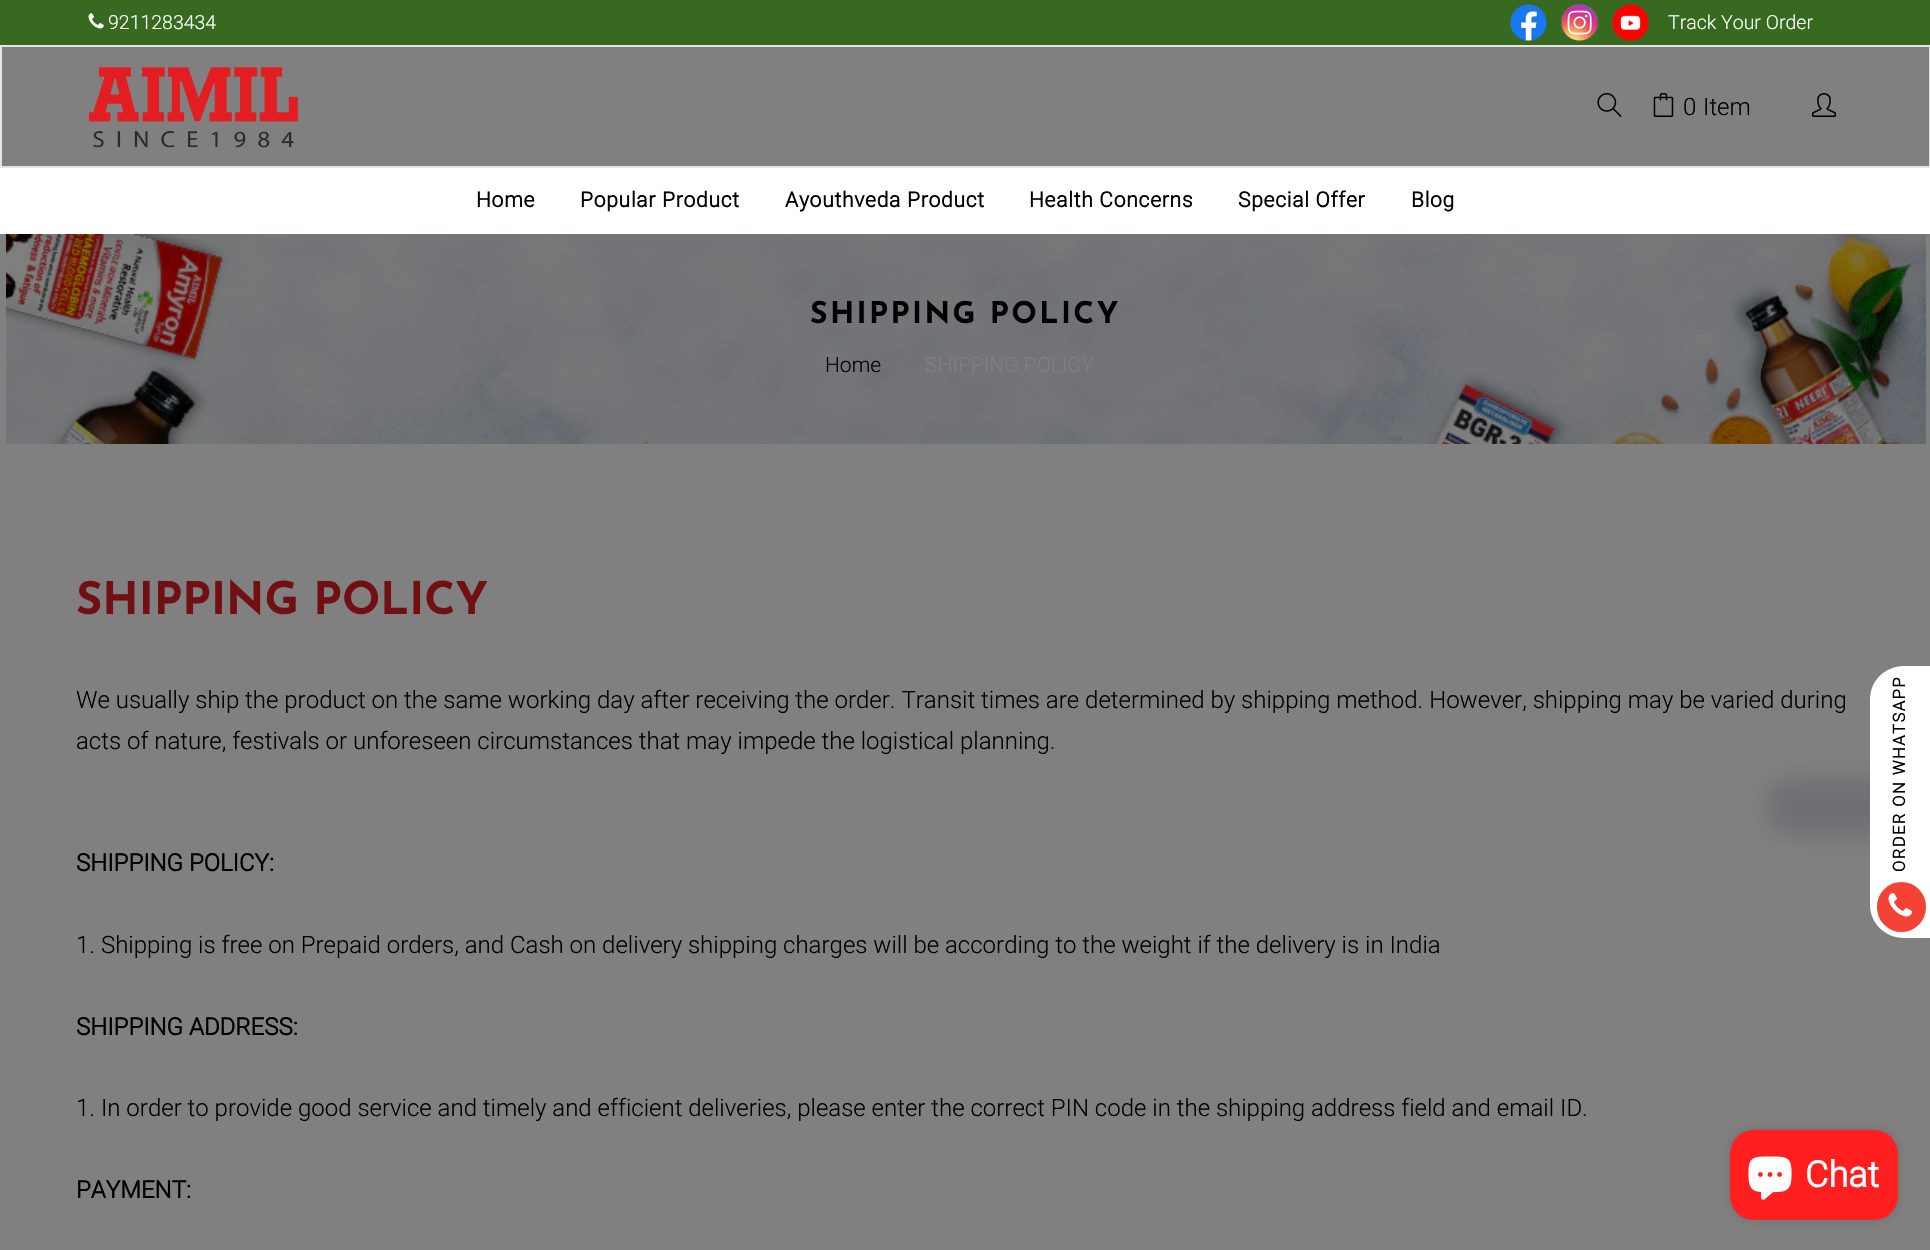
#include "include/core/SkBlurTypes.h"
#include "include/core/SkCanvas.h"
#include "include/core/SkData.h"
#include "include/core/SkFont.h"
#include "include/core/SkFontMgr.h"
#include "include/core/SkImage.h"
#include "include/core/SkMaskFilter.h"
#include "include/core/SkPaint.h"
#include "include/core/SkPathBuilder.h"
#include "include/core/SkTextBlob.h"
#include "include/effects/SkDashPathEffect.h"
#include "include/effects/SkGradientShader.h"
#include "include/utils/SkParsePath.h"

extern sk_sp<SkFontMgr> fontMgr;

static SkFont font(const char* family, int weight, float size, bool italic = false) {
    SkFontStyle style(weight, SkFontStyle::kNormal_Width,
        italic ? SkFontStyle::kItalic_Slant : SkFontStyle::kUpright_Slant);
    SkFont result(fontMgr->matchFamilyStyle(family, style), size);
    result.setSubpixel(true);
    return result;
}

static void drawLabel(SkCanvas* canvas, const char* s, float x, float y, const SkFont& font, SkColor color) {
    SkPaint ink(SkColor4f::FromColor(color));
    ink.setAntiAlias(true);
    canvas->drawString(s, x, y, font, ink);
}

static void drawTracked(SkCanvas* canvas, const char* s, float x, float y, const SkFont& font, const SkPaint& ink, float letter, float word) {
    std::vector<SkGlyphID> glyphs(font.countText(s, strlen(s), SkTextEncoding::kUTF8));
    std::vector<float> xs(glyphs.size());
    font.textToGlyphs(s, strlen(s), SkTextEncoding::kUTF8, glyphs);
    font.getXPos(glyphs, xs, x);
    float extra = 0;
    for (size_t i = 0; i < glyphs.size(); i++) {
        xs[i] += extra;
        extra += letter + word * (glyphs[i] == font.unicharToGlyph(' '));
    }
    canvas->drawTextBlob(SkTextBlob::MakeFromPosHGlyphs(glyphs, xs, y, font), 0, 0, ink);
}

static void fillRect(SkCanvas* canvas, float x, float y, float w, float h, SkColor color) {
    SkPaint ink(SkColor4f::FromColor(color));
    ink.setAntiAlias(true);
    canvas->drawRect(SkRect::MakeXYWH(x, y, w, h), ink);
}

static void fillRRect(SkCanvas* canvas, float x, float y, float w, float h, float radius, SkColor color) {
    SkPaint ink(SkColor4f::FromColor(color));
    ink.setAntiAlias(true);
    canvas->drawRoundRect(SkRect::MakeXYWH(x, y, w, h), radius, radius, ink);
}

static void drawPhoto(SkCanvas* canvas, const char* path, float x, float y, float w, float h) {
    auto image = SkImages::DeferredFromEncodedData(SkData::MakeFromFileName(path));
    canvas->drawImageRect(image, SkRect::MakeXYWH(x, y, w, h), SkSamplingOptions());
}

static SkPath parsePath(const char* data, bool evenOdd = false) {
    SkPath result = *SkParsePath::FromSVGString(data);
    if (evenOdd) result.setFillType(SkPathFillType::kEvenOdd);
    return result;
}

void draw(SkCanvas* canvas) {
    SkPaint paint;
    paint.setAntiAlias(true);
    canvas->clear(0xFF808080);
    fillRect(canvas, 0, 0, 1930, 45, 0xFF376920);
    drawPhoto(canvas, "assets/img1.png", 88, 13, 16, 16);
    SkFont font1 = font("Roboto", 300, 19.5f);
    drawLabel(canvas, "9211283434", 108, 29, font1, 0xFFFFFFFF);
    drawPhoto(canvas, "assets/img2.png", 1510, 4, 37, 37);
    drawPhoto(canvas, "assets/img3.png", 1561, 4, 37, 37);
    drawPhoto(canvas, "assets/img4.png", 1612, 4, 37, 37);
    drawLabel(canvas, "Track Your Order", 1668, 29, font1, 0xFFFFFFFF);
    paint.setStroke(true);
    paint.setStrokeWidth(2);
    paint.setColor(0xFFE4E4E4);
    canvas->drawRect(SkRect::MakeXYWH(1, 46, 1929, 121), paint);
    drawPhoto(canvas, "assets/img5.png", 89, 67, 209, 81);
    drawPhoto(canvas, "assets/img6.png", 1597, 93, 25, 24);
    drawPhoto(canvas, "assets/img7.png", 1653, 93, 21, 24);
    SkFont font2 = font("Roboto", 300, 24);
    drawLabel(canvas, "0", 1683, 115, font2, 0xFF000000);
    drawLabel(canvas, "Item", 1703, 115, font2, 0xFF000000);
    drawPhoto(canvas, "assets/img8.png", 1812, 93, 24, 24);
    fillRect(canvas, 0, 168, 1930, 66, 0xFFFFFFFF);
    SkFont font3 = font("Roboto", 700, 21);
    paint.setStroke(false);
    paint.setColor(0xFF000000);
    drawTracked(canvas, "Home", 476, 207, font3, paint, 0.75f, 0);
    drawTracked(canvas, "Popular Product", 580, 207, font3, paint, 0.75f, 0);
    drawTracked(canvas, "Ayouthveda Product", 785, 207, font3, paint, 0.75f, 0);
    drawTracked(canvas, "Health Concerns", 1029, 207, font3, paint, 0.75f, 0);
    drawTracked(canvas, "Special Offer", 1238, 207, font3, paint, 0.75f, 0);
    drawTracked(canvas, "Blog", 1411, 207, font3, paint, 0.75f, 0);
    drawPhoto(canvas, "assets/img9.png", 6, 234, 1920, 210);
    SkFont font4 = font("Josefin Sans", 700, 30);
    drawTracked(canvas, "SHIPPING POLICY", 810, 323, font4, paint, 2.4f, 0);
    SkFont font5 = font("Roboto", 300, 21);
    drawLabel(canvas, "Home", 825, 372, font5, 0xFF000000);
    drawLabel(canvas, "SHIPPING POLICY", 925, 372, font5, 0xFF808080);
    SkFont font6 = font("Josefin Sans", 700, 45);
    drawLabel(canvas, "SHIPPING POLICY", 76, 614, font6, 0xFF720F12);
    drawLabel(canvas, "We usually ship the product on the same working day after receiving the order. Transit times are determined by shipping method. However, shipping may be varied during", 76, 708, font2, 0xFF000000);
    drawLabel(canvas, "acts of nature, festivals or unforeseen circumstances that may impede the logistical planning.", 76, 749, font2, 0xFF000000);
    SkFont font7 = font("Roboto", 700, 24);
    drawLabel(canvas, "SHIPPING POLICY:", 76, 871, font7, 0xFF000000);
    drawLabel(canvas, "1. Shipping is free on Prepaid orders, and Cash on delivery shipping charges will be according to the weight if the delivery is in India", 76, 953, font2, 0xFF000000);
    drawLabel(canvas, "SHIPPING ADDRESS:", 76, 1035, font7, 0xFF000000);
    drawLabel(canvas, "1. In order to provide good service and timely and efficient deliveries, please enter the correct PIN code in the shipping address field and email ID.", 76, 1116, font2, 0xFF000000);
    drawLabel(canvas, "PAYMENT:", 76, 1198, font7, 0xFF000000);
    paint.setColor(0x29112233);
    paint.setMaskFilter(SkMaskFilter::MakeBlur(kNormal_SkBlurStyle, 10.5f));
    canvas->drawRoundRect(SkRect::MakeXYWH(1764, 777, 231, 60), 33, 33, paint);
    paint.setMaskFilter(nullptr);
    paint.setColor(0xFFFFFFFF);
    canvas->drawPath(parsePath("M1870 905V699C1870 681 1885 666 1904 666H1930V938H1904C1885 938 1870 923 1870 905Z"), paint);
    SkFont font8 = font("Roboto", 700, 16.5f);
    paint.setColor(0xFF000000);
    canvas->save();
    canvas->rotate(-90, 1905, 872);
    drawTracked(canvas, "ORDER ON WHATSAPP", 1905, 872, font8, paint, 1.5f, 0);
    canvas->restore();
    fillRRect(canvas, 1877, 882, 49, 50, 24.5f, 0xFFF44336);
    drawPhoto(canvas, "assets/img10.png", 1888, 892, 25, 25);
    paint.setColor(0x26000000);
    paint.setMaskFilter(SkMaskFilter::MakeBlur(kNormal_SkBlurStyle, 4));
    canvas->drawRoundRect(SkRect::MakeXYWH(1730, 1130, 168, 90), 24, 24, paint);
    paint.setMaskFilter(nullptr);
    fillRRect(canvas, 1730, 1130, 168, 90, 24, 0xFFFF1F1F);
    drawPhoto(canvas, "assets/img11.png", 1748, 1156, 44, 44);
    SkFont font9 = font("Roboto", 700, 36);
    drawLabel(canvas, "Chat", 1805, 1187, font9, 0xFFFFFFFF);
}
